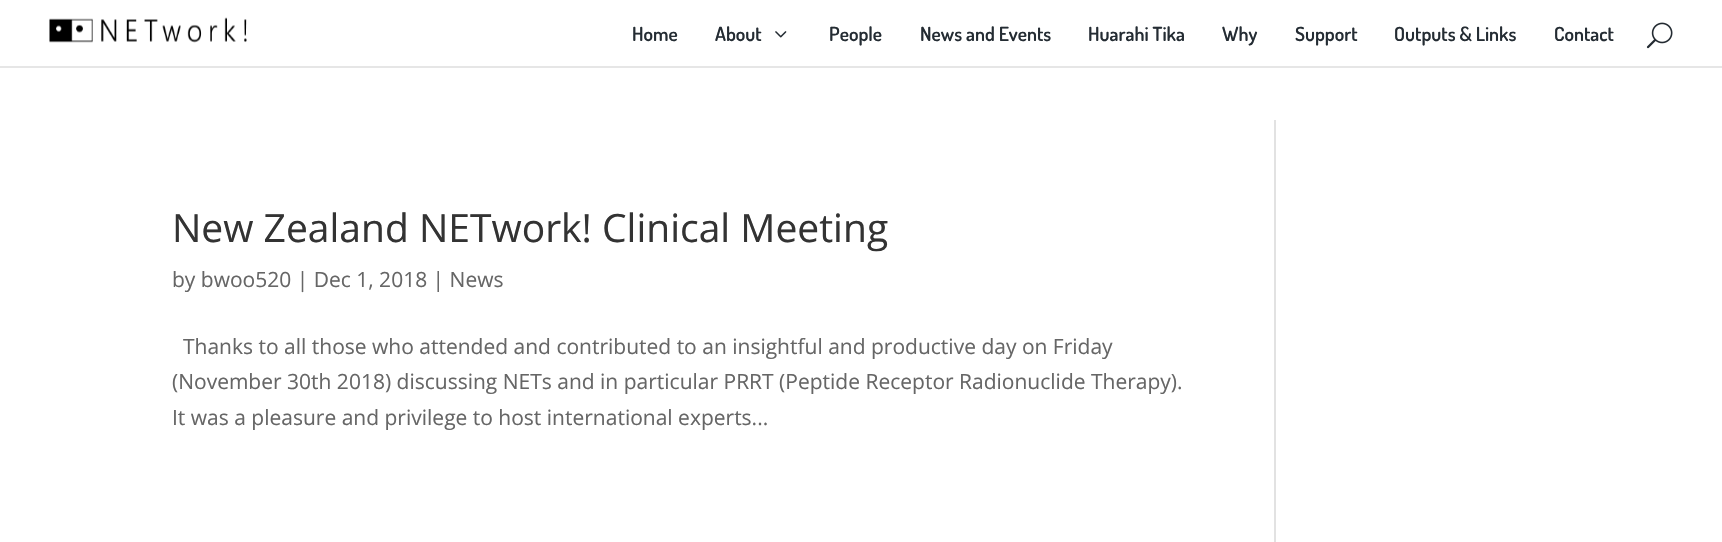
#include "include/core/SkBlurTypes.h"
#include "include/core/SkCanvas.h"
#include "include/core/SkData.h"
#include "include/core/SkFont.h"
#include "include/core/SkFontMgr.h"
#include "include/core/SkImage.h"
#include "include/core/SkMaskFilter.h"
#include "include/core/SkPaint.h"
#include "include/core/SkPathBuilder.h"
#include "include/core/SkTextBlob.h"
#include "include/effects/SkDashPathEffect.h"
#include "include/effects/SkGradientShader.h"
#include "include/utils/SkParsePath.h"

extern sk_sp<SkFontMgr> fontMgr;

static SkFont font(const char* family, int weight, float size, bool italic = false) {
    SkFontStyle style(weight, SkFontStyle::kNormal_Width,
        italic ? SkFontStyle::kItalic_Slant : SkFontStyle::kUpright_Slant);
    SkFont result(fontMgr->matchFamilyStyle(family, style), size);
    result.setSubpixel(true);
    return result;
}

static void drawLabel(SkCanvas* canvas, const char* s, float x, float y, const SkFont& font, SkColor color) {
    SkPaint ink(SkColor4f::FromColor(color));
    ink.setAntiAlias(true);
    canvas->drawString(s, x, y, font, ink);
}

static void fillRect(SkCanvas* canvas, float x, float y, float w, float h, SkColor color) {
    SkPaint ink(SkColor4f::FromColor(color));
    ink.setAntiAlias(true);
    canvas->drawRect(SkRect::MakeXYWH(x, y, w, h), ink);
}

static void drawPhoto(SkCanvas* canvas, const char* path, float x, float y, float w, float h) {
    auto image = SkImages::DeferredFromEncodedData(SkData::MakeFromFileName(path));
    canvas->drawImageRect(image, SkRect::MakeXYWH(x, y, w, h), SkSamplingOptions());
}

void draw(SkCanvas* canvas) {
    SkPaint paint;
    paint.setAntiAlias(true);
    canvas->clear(0xFFFFFFFF);
    fillRect(canvas, 0, 66, 1722, 2, 0xFFE6E6E6);
    drawPhoto(canvas, "assets/img1.png", 49, 17, 198, 26);
    SkFont font1 = font("Dosis", 600, 19.5f);
    drawLabel(canvas, "Home", 632, 41, font1, 0xFF242C33);
    drawLabel(canvas, "About", 715, 41, font1, 0xFF242C33);
    drawPhoto(canvas, "assets/img2.png", 775, 31, 12, 7);
    drawLabel(canvas, "People", 829, 41, font1, 0xFF242C33);
    drawLabel(canvas, "News and Events", 920, 41, font1, 0xFF242C33);
    drawLabel(canvas, "Huarahi Tika", 1088, 41, font1, 0xFF242C33);
    drawLabel(canvas, "Why", 1222, 41, font1, 0xFF242C33);
    drawLabel(canvas, "Support", 1295, 41, font1, 0xFF242C33);
    drawLabel(canvas, "Outputs & Links", 1394, 41, font1, 0xFF242C33);
    drawLabel(canvas, "Contact", 1554, 41, font1, 0xFF242C33);
    drawPhoto(canvas, "assets/img3.png", 1646, 22, 27, 27);
    SkFont font2 = font("Open Sans", 400, 39);
    drawLabel(canvas, "New Zealand NETwork! Clinical Meeting", 172, 242, font2, 0xFF333333);
    SkFont font3 = font("Open Sans", 400, 21);
    drawLabel(canvas, "by bwoo520 | Dec 1, 2018 | News", 172, 287, font3, 0xFF666666);
    drawLabel(canvas, "Thanks to all those who attended and contributed to an insightful and productive day on Friday", 183, 354, font3, 0xFF666666);
    drawLabel(canvas, "(November 30th 2018) discussing NETs and in particular PRRT (Peptide Receptor Radionuclide Therapy).", 172, 389, font3, 0xFF666666);
    drawLabel(canvas, "It was a pleasure and privilege to host international experts...", 172, 425, font3, 0xFF666666);
    fillRect(canvas, 1274, 120, 2, 422, 0xFFE2E2E2);
}
